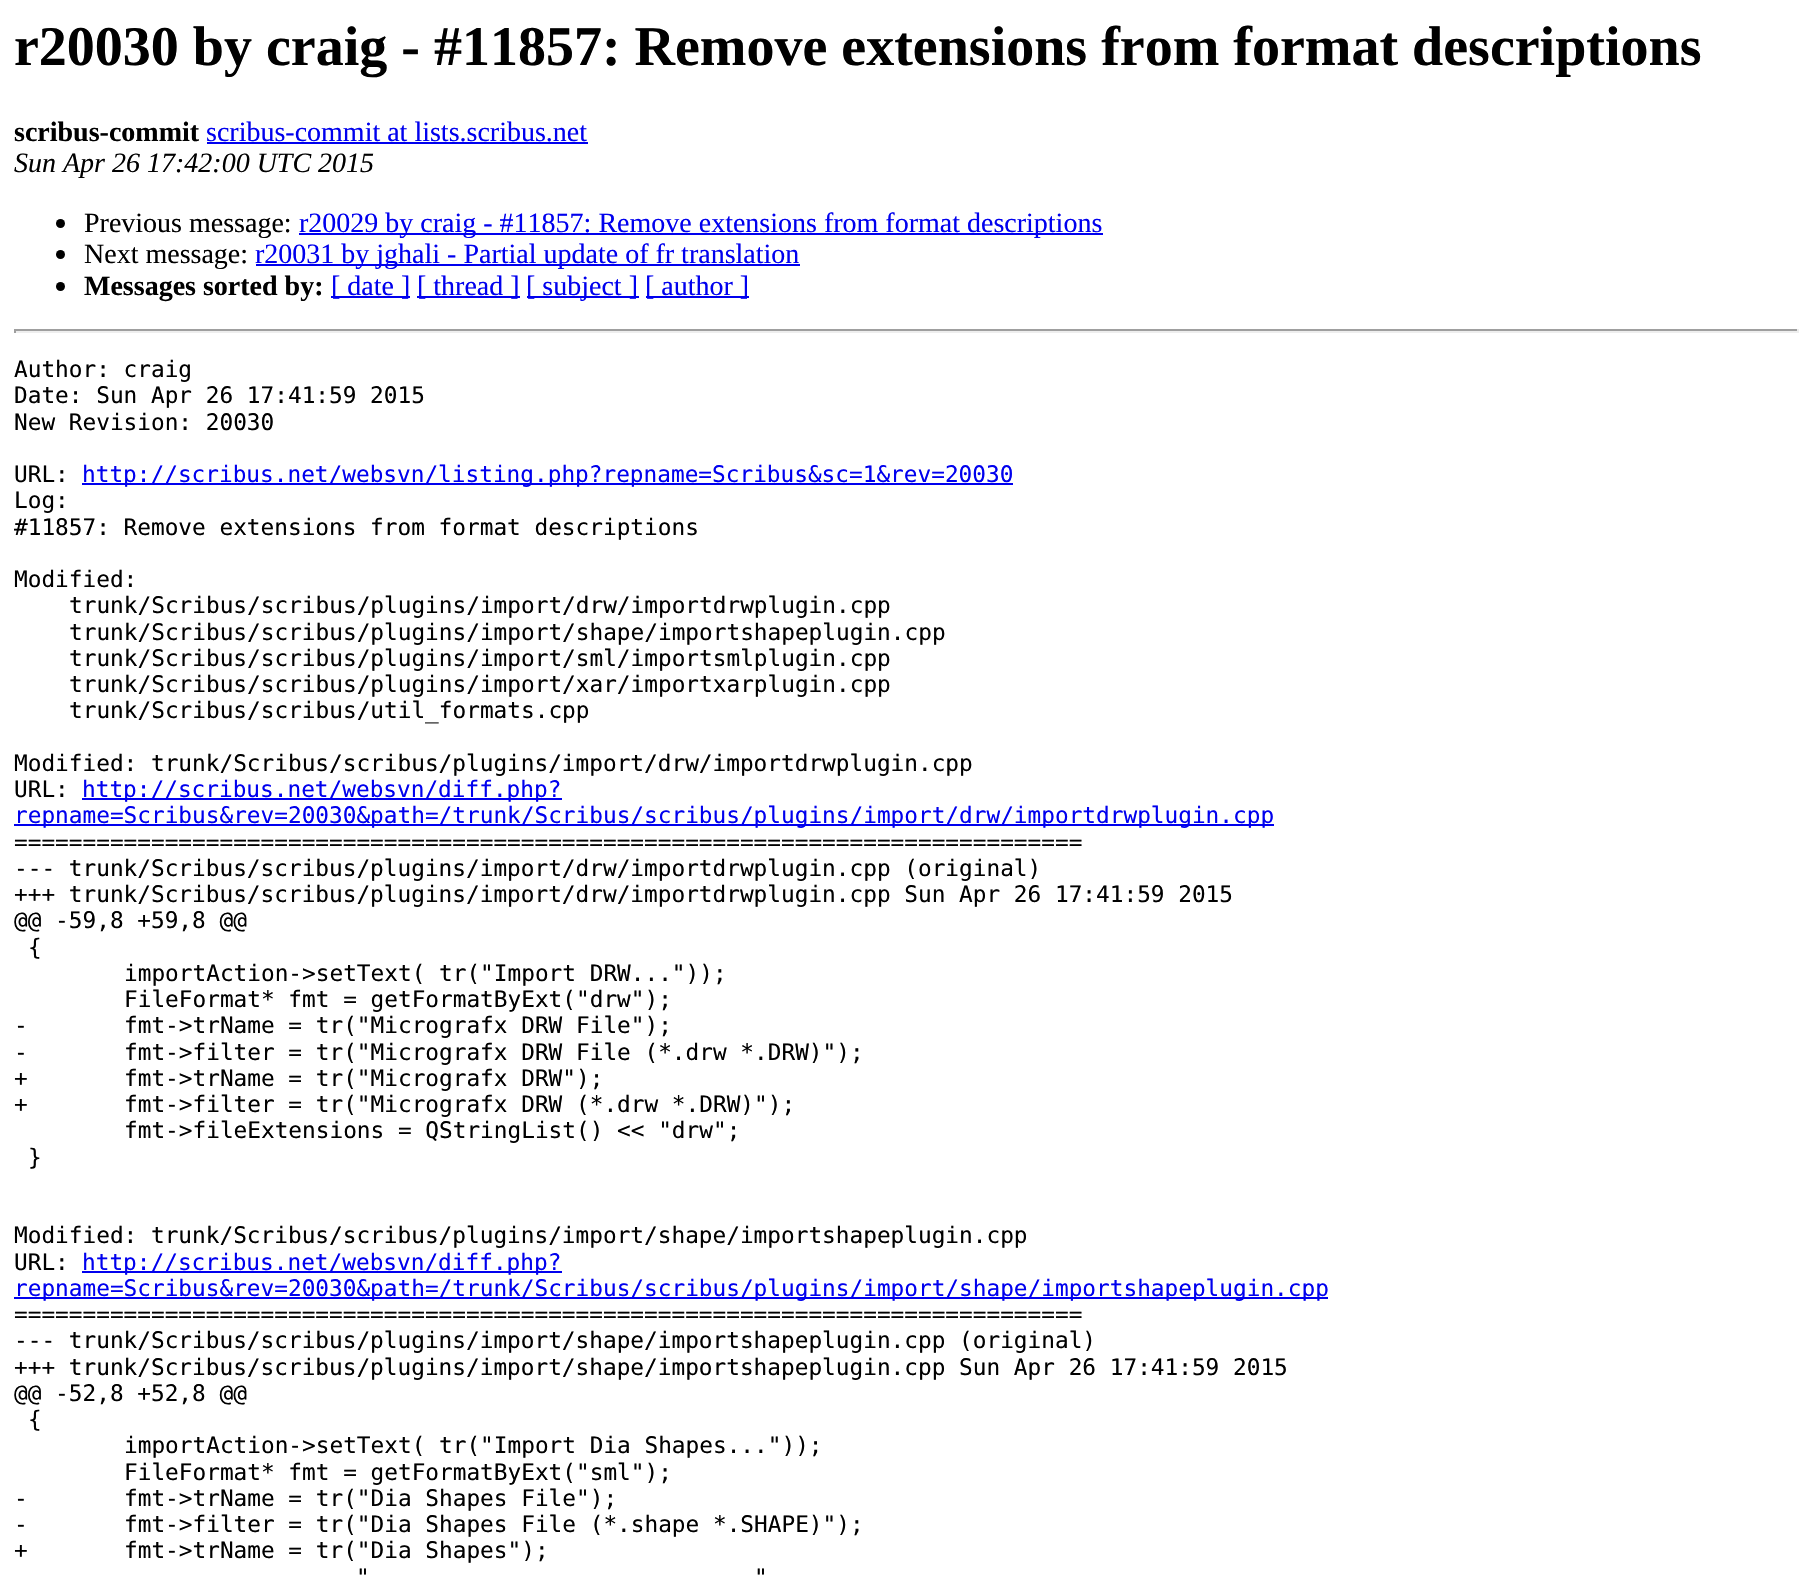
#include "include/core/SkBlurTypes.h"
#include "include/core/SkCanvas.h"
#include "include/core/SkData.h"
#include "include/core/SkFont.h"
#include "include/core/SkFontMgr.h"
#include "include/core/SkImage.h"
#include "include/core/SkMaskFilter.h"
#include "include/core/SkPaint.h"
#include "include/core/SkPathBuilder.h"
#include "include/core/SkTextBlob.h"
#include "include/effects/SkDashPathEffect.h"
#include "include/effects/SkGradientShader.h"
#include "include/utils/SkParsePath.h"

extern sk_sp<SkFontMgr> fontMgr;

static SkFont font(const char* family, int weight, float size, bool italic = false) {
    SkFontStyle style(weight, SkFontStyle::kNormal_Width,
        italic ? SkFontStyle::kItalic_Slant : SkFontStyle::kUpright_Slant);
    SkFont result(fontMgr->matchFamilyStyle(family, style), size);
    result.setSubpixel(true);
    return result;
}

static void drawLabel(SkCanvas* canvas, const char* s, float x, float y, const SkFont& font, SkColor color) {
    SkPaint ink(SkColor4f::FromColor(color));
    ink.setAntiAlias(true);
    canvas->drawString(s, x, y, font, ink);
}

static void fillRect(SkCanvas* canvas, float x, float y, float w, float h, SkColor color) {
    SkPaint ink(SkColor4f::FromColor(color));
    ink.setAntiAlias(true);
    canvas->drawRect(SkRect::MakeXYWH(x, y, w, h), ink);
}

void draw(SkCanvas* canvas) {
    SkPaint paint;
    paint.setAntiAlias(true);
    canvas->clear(0xFFFFFFFF);
    SkFont font1 = font("Liberation Serif", 700, 56);
    drawLabel(canvas, "r20030 by craig - #11857: Remove extensions from format descriptions", 14, 65, font1, 0xFF000000);
    SkFont font2 = font("Liberation Serif", 700, 28);
    drawLabel(canvas, "scribus-commit", 14, 141, font2, 0xFF000000);
    SkFont font3 = font("Liberation Serif", 400, 28);
    drawLabel(canvas, "scribus-commit at lists.scribus.net", 206, 141, font3, 0xFF0000EE);
    fillRect(canvas, 207, 142, 381, 2, 0xFF0000EE);
    SkFont font4 = font("Liberation Serif", 400, 28, true);
    drawLabel(canvas, "Sun Apr 26 17:42:00 UTC 2015", 14, 172, font4, 0xFF000000);
    paint.setColor(0xFF000000);
    canvas->drawCircle(60.5f, 223.5f, 4.5f, paint);
    drawLabel(canvas, "Previous message:", 84, 232, font3, 0xFF000000);
    fillRect(canvas, 299, 233, 804, 2, 0xFF0000EE);
    drawLabel(canvas, "r20029 by craig - #11857: Remove extensions from format descriptions", 299, 232, font3, 0xFF0000EE);
    canvas->drawCircle(60.5f, 254.5f, 4.5f, paint);
    drawLabel(canvas, "Next message:", 84, 263, font3, 0xFF000000);
    fillRect(canvas, 256, 264, 544, 2, 0xFF0000EE);
    drawLabel(canvas, "r20031 by jghali - Partial update of fr translation", 255, 263, font3, 0xFF0000EE);
    canvas->drawCircle(60.5f, 286.5f, 4.5f, paint);
    drawLabel(canvas, "Messages sorted by:", 84, 295, font2, 0xFF000000);
    fillRect(canvas, 331, 296, 79, 2, 0xFF0000EE);
    drawLabel(canvas, "[ date ]", 331, 295, font3, 0xFF0000EE);
    fillRect(canvas, 417, 296, 103, 2, 0xFF0000EE);
    drawLabel(canvas, "[ thread ]", 417, 295, font3, 0xFF0000EE);
    fillRect(canvas, 527, 296, 112, 2, 0xFF0000EE);
    drawLabel(canvas, "[ subject ]", 526, 295, font3, 0xFF0000EE);
    fillRect(canvas, 646, 296, 103, 2, 0xFF0000EE);
    drawLabel(canvas, "[ author ]", 645, 295, font3, 0xFF0000EE);
    fillRect(canvas, 14, 329, 1785, 2, 0xFF9F9F9F);
    fillRect(canvas, 1797, 329, 2, 4, 0xFFEEEEEE);
    fillRect(canvas, 14, 331, 1785, 2, 0xFFEEEEEE);
    fillRect(canvas, 14, 329, 2, 4, 0xFF9F9F9F);
    SkFont font5 = font("DejaVu Sans Mono", 400, 22.75f);
    drawLabel(canvas, "Author: craig", 14, 377, font5, 0xFF000000);
    drawLabel(canvas, "Date: Sun Apr 26 17:41:59 2015", 14, 403, font5, 0xFF000000);
    drawLabel(canvas, "New Revision: 20030", 14, 430, font5, 0xFF000000);
    drawLabel(canvas, "URL:", 14, 482, font5, 0xFF000000);
    fillRect(canvas, 82, 483, 931, 2, 0xFF0000EE);
    drawLabel(canvas, "http://scribus.net/websvn/listing.php?repname=Scribus&sc=1&rev=20030", 82, 482, font5, 0xFF0000EE);
    drawLabel(canvas, "Log:", 14, 508, font5, 0xFF000000);
    drawLabel(canvas, "#11857: Remove extensions from format descriptions", 14, 535, font5, 0xFF000000);
    drawLabel(canvas, "Modified:", 14, 587, font5, 0xFF000000);
    drawLabel(canvas, "trunk/Scribus/scribus/plugins/import/drw/importdrwplugin.cpp", 69, 613, font5, 0xFF000000);
    drawLabel(canvas, "trunk/Scribus/scribus/plugins/import/shape/importshapeplugin.cpp", 69, 640, font5, 0xFF000000);
    drawLabel(canvas, "trunk/Scribus/scribus/plugins/import/sml/importsmlplugin.cpp", 69, 666, font5, 0xFF000000);
    drawLabel(canvas, "trunk/Scribus/scribus/plugins/import/xar/importxarplugin.cpp", 69, 692, font5, 0xFF000000);
    drawLabel(canvas, "trunk/Scribus/scribus/util_formats.cpp", 69, 718, font5, 0xFF000000);
    drawLabel(canvas, "Modified: trunk/Scribus/scribus/plugins/import/drw/importdrwplugin.cpp", 14, 771, font5, 0xFF000000);
    drawLabel(canvas, "URL:", 14, 797, font5, 0xFF000000);
    fillRect(canvas, 82, 798, 480, 2, 0xFF0000EE);
    drawLabel(canvas, "http://scribus.net/websvn/diff.php?", 82, 797, font5, 0xFF0000EE);
    fillRect(canvas, 14, 824, 1260, 2, 0xFF0000EE);
    drawLabel(canvas, "repname=Scribus&rev=20030&path=/trunk/Scribus/scribus/plugins/import/drw/importdrwplugin.cpp", 14, 823, font5, 0xFF0000EE);
    drawLabel(canvas, "==============================================================================", 14, 850, font5, 0xFF000000);
    drawLabel(canvas, "--- trunk/Scribus/scribus/plugins/import/drw/importdrwplugin.cpp (original)", 14, 876, font5, 0xFF000000);
    drawLabel(canvas, "+++ trunk/Scribus/scribus/plugins/import/drw/importdrwplugin.cpp Sun Apr 26 17:41:59 2015", 14, 902, font5, 0xFF000000);
    drawLabel(canvas, "@@ -59,8 +59,8 @@", 14, 928, font5, 0xFF000000);
    drawLabel(canvas, "{", 28, 955, font5, 0xFF000000);
    drawLabel(canvas, "importAction->setText( tr(\"Import DRW...\"));", 124, 981, font5, 0xFF000000);
    drawLabel(canvas, "FileFormat* fmt = getFormatByExt(\"drw\");", 124, 1007, font5, 0xFF000000);
    drawLabel(canvas, "-", 14, 1033, font5, 0xFF000000);
    drawLabel(canvas, "fmt->trName = tr(\"Micrografx DRW File\");", 124, 1033, font5, 0xFF000000);
    drawLabel(canvas, "-", 14, 1060, font5, 0xFF000000);
    drawLabel(canvas, "fmt->filter = tr(\"Micrografx DRW File (*.drw *.DRW)\");", 124, 1060, font5, 0xFF000000);
    drawLabel(canvas, "+", 14, 1086, font5, 0xFF000000);
    drawLabel(canvas, "fmt->trName = tr(\"Micrografx DRW\");", 124, 1086, font5, 0xFF000000);
    drawLabel(canvas, "+", 14, 1112, font5, 0xFF000000);
    drawLabel(canvas, "fmt->filter = tr(\"Micrografx DRW (*.drw *.DRW)\");", 124, 1112, font5, 0xFF000000);
    drawLabel(canvas, "fmt->fileExtensions = QStringList() << \"drw\";", 124, 1138, font5, 0xFF000000);
    drawLabel(canvas, "}", 28, 1165, font5, 0xFF000000);
    drawLabel(canvas, "Modified: trunk/Scribus/scribus/plugins/import/shape/importshapeplugin.cpp", 14, 1243, font5, 0xFF000000);
    drawLabel(canvas, "URL:", 14, 1270, font5, 0xFF000000);
    fillRect(canvas, 82, 1271, 480, 2, 0xFF0000EE);
    drawLabel(canvas, "http://scribus.net/websvn/diff.php?", 82, 1270, font5, 0xFF0000EE);
    fillRect(canvas, 14, 1297, 1314, 2, 0xFF0000EE);
    drawLabel(canvas, "repname=Scribus&rev=20030&path=/trunk/Scribus/scribus/plugins/import/shape/importshapeplugin.cpp", 14, 1296, font5, 0xFF0000EE);
    drawLabel(canvas, "==============================================================================", 14, 1322, font5, 0xFF000000);
    drawLabel(canvas, "--- trunk/Scribus/scribus/plugins/import/shape/importshapeplugin.cpp (original)", 14, 1348, font5, 0xFF000000);
    drawLabel(canvas, "+++ trunk/Scribus/scribus/plugins/import/shape/importshapeplugin.cpp Sun Apr 26 17:41:59 2015", 14, 1375, font5, 0xFF000000);
    drawLabel(canvas, "@@ -52,8 +52,8 @@", 14, 1401, font5, 0xFF000000);
    drawLabel(canvas, "{", 28, 1427, font5, 0xFF000000);
    drawLabel(canvas, "importAction->setText( tr(\"Import Dia Shapes...\"));", 124, 1453, font5, 0xFF000000);
    drawLabel(canvas, "FileFormat* fmt = getFormatByExt(\"sml\");", 124, 1480, font5, 0xFF000000);
    drawLabel(canvas, "-", 14, 1506, font5, 0xFF000000);
    drawLabel(canvas, "fmt->trName = tr(\"Dia Shapes File\");", 124, 1506, font5, 0xFF000000);
    drawLabel(canvas, "-", 14, 1532, font5, 0xFF000000);
    drawLabel(canvas, "fmt->filter = tr(\"Dia Shapes File (*.shape *.SHAPE)\");", 124, 1532, font5, 0xFF000000);
    drawLabel(canvas, "+", 14, 1558, font5, 0xFF000000);
    drawLabel(canvas, "fmt->trName = tr(\"Dia Shapes\");", 124, 1558, font5, 0xFF000000);
    drawLabel(canvas, "\"", 356, 1585, font5, 0xFF000000);
    drawLabel(canvas, "\"", 754, 1585, font5, 0xFF000000);
}
